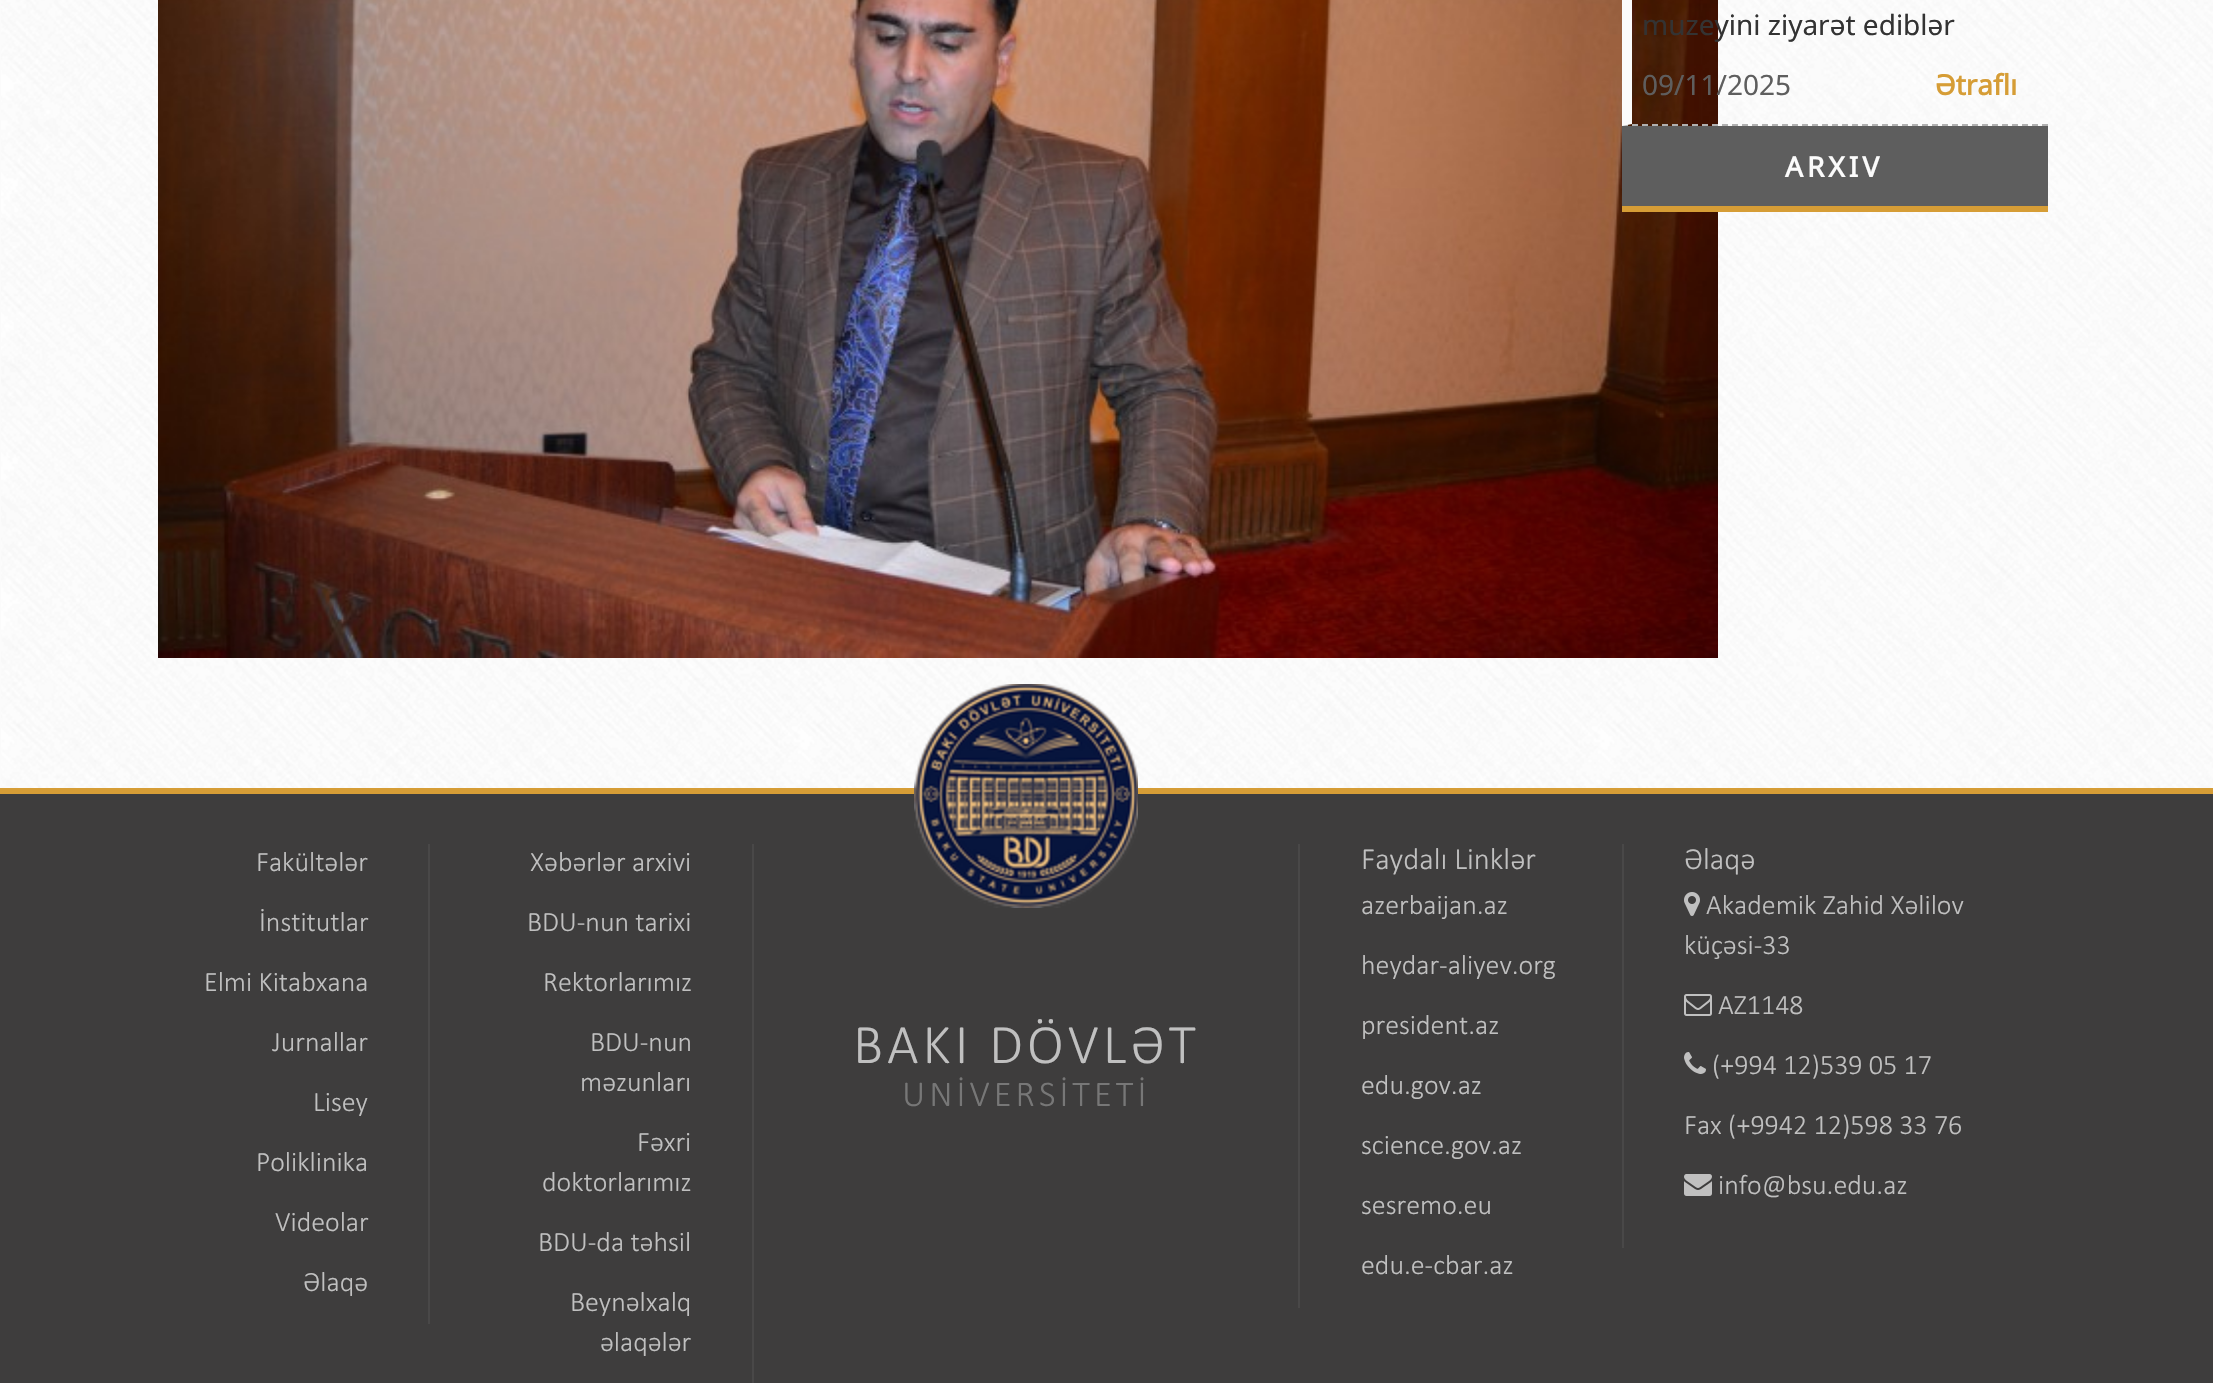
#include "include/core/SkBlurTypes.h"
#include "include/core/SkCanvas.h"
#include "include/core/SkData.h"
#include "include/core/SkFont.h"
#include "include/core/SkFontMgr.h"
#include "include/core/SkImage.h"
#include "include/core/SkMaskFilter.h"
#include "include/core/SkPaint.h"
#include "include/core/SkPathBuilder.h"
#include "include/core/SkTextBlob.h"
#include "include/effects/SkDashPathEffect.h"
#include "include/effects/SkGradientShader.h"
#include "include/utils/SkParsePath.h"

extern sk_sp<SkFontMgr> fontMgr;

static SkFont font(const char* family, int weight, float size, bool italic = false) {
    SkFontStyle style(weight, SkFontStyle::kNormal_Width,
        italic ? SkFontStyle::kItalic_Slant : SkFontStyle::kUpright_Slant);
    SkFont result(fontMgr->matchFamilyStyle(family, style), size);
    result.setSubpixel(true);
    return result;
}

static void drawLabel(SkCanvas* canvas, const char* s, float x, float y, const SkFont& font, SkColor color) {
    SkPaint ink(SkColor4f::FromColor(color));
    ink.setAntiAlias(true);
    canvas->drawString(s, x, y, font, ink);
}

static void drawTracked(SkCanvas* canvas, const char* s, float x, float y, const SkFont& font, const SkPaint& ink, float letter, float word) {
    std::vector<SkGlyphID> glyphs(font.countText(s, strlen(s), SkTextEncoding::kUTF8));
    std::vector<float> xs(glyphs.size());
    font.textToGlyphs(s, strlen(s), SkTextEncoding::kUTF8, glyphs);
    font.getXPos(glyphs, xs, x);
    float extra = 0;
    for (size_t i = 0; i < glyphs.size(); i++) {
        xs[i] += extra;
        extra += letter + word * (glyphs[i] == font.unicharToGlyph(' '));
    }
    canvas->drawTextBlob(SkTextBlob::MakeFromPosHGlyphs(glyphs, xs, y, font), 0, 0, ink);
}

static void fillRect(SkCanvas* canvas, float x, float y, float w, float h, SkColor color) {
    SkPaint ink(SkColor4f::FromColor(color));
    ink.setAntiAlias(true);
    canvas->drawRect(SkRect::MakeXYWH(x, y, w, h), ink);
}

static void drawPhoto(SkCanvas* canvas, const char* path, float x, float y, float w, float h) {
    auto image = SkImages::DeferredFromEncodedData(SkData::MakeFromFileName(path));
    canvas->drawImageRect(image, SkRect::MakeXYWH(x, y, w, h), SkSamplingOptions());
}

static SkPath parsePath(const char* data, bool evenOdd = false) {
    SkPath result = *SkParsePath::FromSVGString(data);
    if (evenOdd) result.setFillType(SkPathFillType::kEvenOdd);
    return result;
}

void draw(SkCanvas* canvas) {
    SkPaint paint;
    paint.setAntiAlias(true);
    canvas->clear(0xFFFBFBFB);
    drawPhoto(canvas, "assets/img1.png", 1, 0, 2212, 788);
    drawPhoto(canvas, "assets/img2.png", 158, 0, 1560, 658);
    paint.setStroke(true);
    paint.setStrokeWidth(2);
    paint.setColor(0xFFB1B1B1);
    paint.setPathEffect(SkDashPathEffect::Make({{6, 4}}, 0));
    canvas->drawPath(parsePath("M1622 125H2048"), paint);
    paint.setPathEffect(nullptr);
    paint.setStroke(false);
    paint.setColor(0xFFFBFBFB);
    canvas->drawPath(parsePath("M1622 126V-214H1632V124Z"), paint);
    SkFont font1 = font("Noto Sans", 400, 28);
    drawLabel(canvas, "muzeyini ziyarət ediblər", 1642, 35, font1, 0xFF333333);
    drawLabel(canvas, "09/11/2025", 1642, 95, font1, 0xFF5E5E5E);
    SkFont font2 = font("Noto Sans", 700, 28);
    drawLabel(canvas, "Ətraflı", 1935, 95, font2, 0xFFD69D36);
    fillRect(canvas, 1622, 126, 426, 80, 0xFF5E5E5E);
    fillRect(canvas, 1622, 206, 426, 6, 0xFFD69D36);
    drawTracked(canvas, "ARXIV", 1785, 177, font2, paint, 4, 0);
    fillRect(canvas, 0, 794, 2213, 589, 0xFF3E3D3D);
    fillRect(canvas, 0, 788, 2213, 6, 0xFFD69D36);
    fillRect(canvas, 428, 844, 2, 480, 0xFF494848);
    SkFont font3 = font("Calibri", 300, 28);
    drawLabel(canvas, "Fakültələr", 256, 871, font3, 0xFFC0C0C0);
    drawLabel(canvas, "İnstitutlar", 259, 931, font3, 0xFFC0C0C0);
    drawLabel(canvas, "Elmi Kitabxana", 204, 991, font3, 0xFFC0C0C0);
    drawLabel(canvas, "Jurnallar", 272, 1051, font3, 0xFFC0C0C0);
    drawLabel(canvas, "Lisey", 313, 1111, font3, 0xFFC0C0C0);
    drawLabel(canvas, "Poliklinika", 256, 1171, font3, 0xFFC0C0C0);
    drawLabel(canvas, "Videolar", 275, 1231, font3, 0xFFC0C0C0);
    drawLabel(canvas, "Əlaqə", 303, 1291, font3, 0xFFC0C0C0);
    fillRect(canvas, 752, 844, 2, 539, 0xFF494848);
    drawLabel(canvas, "Xəbərlər arxivi", 530, 871, font3, 0xFFC0C0C0);
    drawLabel(canvas, "BDU-nun tarixi", 527, 931, font3, 0xFFC0C0C0);
    drawLabel(canvas, "Rektorlarımız", 543, 991, font3, 0xFFC0C0C0);
    drawLabel(canvas, "BDU-nun", 590, 1051, font3, 0xFFC0C0C0);
    drawLabel(canvas, "məzunları", 580, 1091, font3, 0xFFC0C0C0);
    drawLabel(canvas, "Fəxri", 637, 1151, font3, 0xFFC0C0C0);
    drawLabel(canvas, "doktorlarımız", 542, 1191, font3, 0xFFC0C0C0);
    drawLabel(canvas, "BDU-da təhsil", 538, 1251, font3, 0xFFC0C0C0);
    drawLabel(canvas, "Beynəlxalq", 570, 1311, font3, 0xFFC0C0C0);
    drawLabel(canvas, "əlaqələr", 600, 1351, font3, 0xFFC0C0C0);
    drawPhoto(canvas, "assets/img3.png", 914, 684, 224, 224);
    SkFont font4 = font("Calibri", 300, 56);
    paint.setColor(0xFFC0C0C0);
    drawTracked(canvas, "BAKI DÖVLƏT", 853, 1063, font4, paint, 4, 0);
    SkFont font5 = font("Calibri", 300, 36.5f);
    paint.setColor(0xFF777777);
    drawTracked(canvas, "UNİVERSİTETİ", 902, 1106, font5, paint, 4, 0);
    fillRect(canvas, 1298, 844, 2, 464, 0xFF494848);
    SkFont font6 = font("Calibri", 300, 30.75f);
    drawLabel(canvas, "Faydalı Linklər", 1361, 869, font6, 0xFFC0C0C0);
    drawLabel(canvas, "azerbaijan.az", 1361, 914, font3, 0xFFC0C0C0);
    drawLabel(canvas, "heydar-aliyev.org", 1361, 974, font3, 0xFFC0C0C0);
    drawLabel(canvas, "president.az", 1361, 1034, font3, 0xFFC0C0C0);
    drawLabel(canvas, "edu.gov.az", 1361, 1094, font3, 0xFFC0C0C0);
    drawLabel(canvas, "science.gov.az", 1361, 1154, font3, 0xFFC0C0C0);
    drawLabel(canvas, "sesremo.eu", 1361, 1214, font3, 0xFFC0C0C0);
    drawLabel(canvas, "edu.e-cbar.az", 1361, 1274, font3, 0xFFC0C0C0);
    fillRect(canvas, 1622, 844, 2, 404, 0xFF494848);
    drawLabel(canvas, "Əlaqə", 1684, 869, font6, 0xFFC0C0C0);
    drawPhoto(canvas, "assets/img4.png", 1684, 892, 16, 24);
    drawLabel(canvas, "Akademik Zahid Xəlilov", 1706, 914, font3, 0xFFC0C0C0);
    drawLabel(canvas, "küçəsi-33", 1684, 954, font3, 0xFFC0C0C0);
    drawPhoto(canvas, "assets/img5.png", 1684, 994, 28, 22);
    drawLabel(canvas, "AZ1148", 1718, 1014, font3, 0xFFC0C0C0);
    drawPhoto(canvas, "assets/img6.png", 1684, 1052, 22, 22);
    drawLabel(canvas, "(+994 12)539 05 17", 1712, 1074, font3, 0xFFC0C0C0);
    drawLabel(canvas, "Fax (+9942 12)598 33 76", 1684, 1134, font3, 0xFFC0C0C0);
    drawPhoto(canvas, "assets/img7.png", 1684, 1174, 28, 22);
    drawLabel(canvas, "info@bsu.edu.az", 1718, 1194, font3, 0xFFC0C0C0);
}
